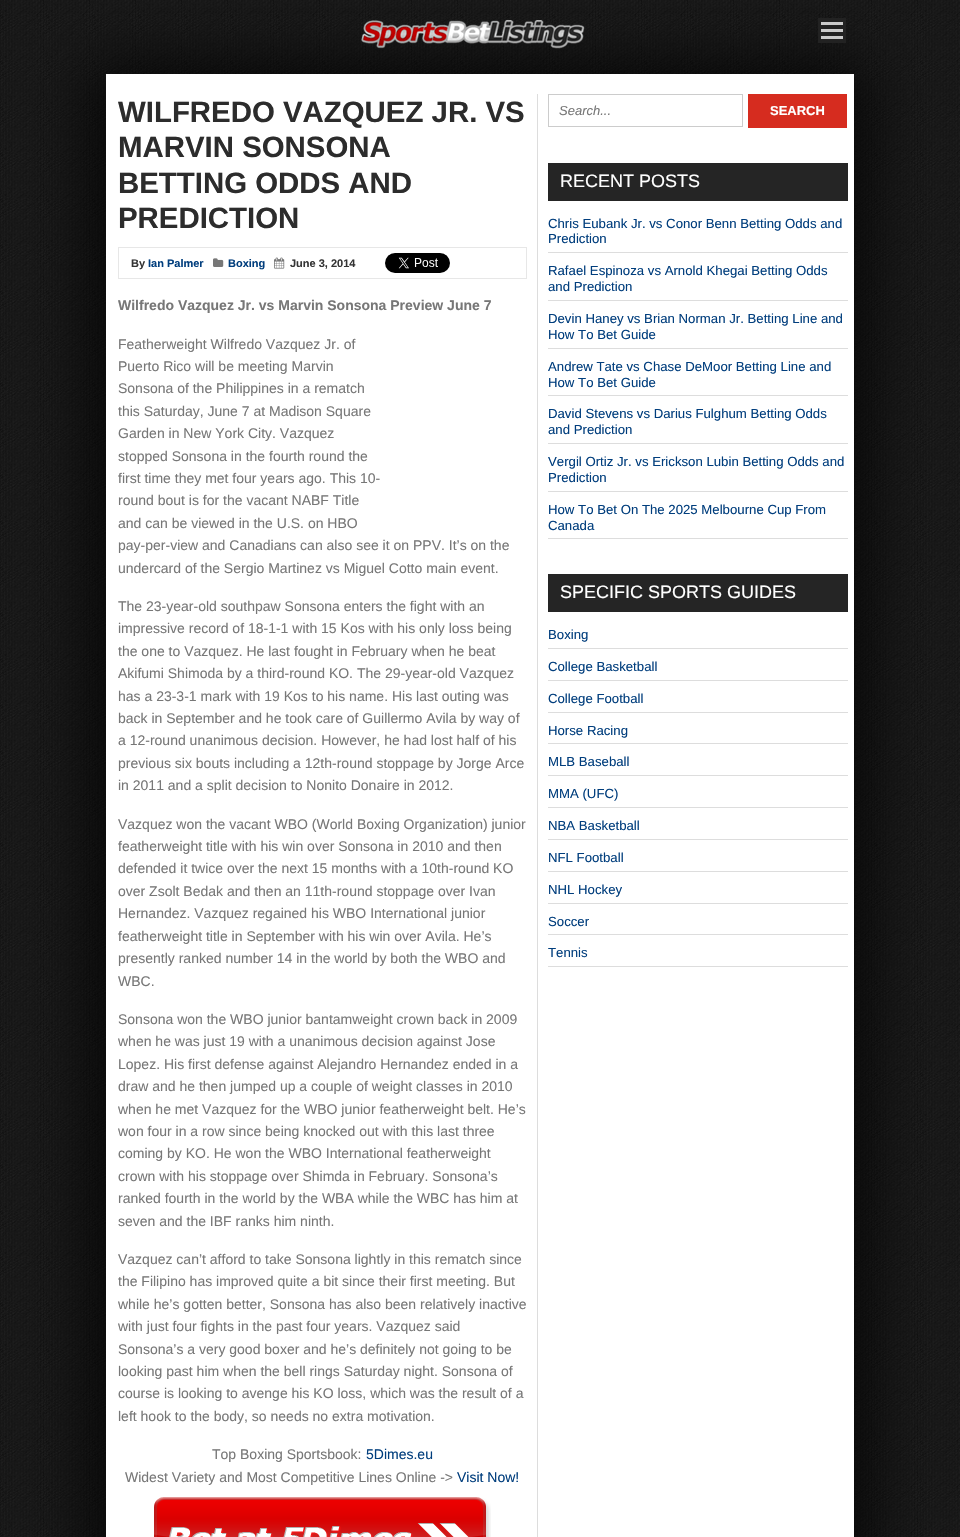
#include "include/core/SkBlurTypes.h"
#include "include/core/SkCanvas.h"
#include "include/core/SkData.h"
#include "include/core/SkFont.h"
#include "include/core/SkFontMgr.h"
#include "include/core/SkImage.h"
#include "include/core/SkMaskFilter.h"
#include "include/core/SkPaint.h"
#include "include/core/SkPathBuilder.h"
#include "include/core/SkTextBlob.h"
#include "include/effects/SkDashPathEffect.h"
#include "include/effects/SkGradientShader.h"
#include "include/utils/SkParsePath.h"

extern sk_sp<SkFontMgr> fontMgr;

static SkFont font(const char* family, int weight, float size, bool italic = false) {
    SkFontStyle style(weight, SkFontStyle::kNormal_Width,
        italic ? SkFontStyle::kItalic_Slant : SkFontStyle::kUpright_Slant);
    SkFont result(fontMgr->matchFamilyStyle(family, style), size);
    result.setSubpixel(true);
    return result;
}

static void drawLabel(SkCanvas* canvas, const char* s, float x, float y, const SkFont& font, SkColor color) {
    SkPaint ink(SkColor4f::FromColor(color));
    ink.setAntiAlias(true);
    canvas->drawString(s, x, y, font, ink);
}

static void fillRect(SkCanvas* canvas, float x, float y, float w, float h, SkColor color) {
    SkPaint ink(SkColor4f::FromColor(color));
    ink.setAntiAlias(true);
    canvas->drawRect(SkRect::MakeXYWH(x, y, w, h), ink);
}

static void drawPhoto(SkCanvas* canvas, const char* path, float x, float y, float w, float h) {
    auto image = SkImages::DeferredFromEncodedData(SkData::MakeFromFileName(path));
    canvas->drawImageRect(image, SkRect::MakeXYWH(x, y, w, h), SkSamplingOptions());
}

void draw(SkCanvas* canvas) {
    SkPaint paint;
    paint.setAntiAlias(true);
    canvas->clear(0xFFFFFFFF);
    drawPhoto(canvas, "assets/img1.png", 0, 0, 960, 1537);
    paint.setColor(0xBF000000);
    paint.setMaskFilter(SkMaskFilter::MakeBlur(kNormal_SkBlurStyle, 29));
    canvas->drawRect(SkRect::MakeXYWH(90, 65, 778, 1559), paint);
    paint.setMaskFilter(nullptr);
    drawPhoto(canvas, "assets/img2.png", 361, 20, 224, 29);
    fillRect(canvas, 818, 18, 28, 25, 0xFF222222);
    fillRect(canvas, 821, 22, 22, 3, 0xFFCACACA);
    fillRect(canvas, 821, 29, 22, 3, 0xFFCACACA);
    fillRect(canvas, 821, 36, 22, 3, 0xFFCACACA);
    fillRect(canvas, 106, 74, 748, 1463, 0xFFFFFFFF);
    fillRect(canvas, 537, 94, 1, 1443, 0xFFDDDDDD);
    SkFont font1 = font("Liberation Sans", 700, 29.4f);
    drawLabel(canvas, "WILFREDO VAZQUEZ JR. VS", 118, 122, font1, 0xFF2C2C2C);
    drawLabel(canvas, "MARVIN SONSONA", 118, 157, font1, 0xFF2C2C2C);
    drawLabel(canvas, "BETTING ODDS AND", 118, 193, font1, 0xFF2C2C2C);
    drawLabel(canvas, "PREDICTION", 118, 228, font1, 0xFF2C2C2C);
    paint.setStroke(true);
    paint.setStrokeWidth(1);
    paint.setColor(0xFFE7E7E7);
    canvas->drawRect(SkRect::MakeXYWH(118.5f, 247.5f, 408, 31), paint);
    SkFont font2 = font("Liberation Sans", 700, 11);
    drawLabel(canvas, "By", 131, 267, font2, 0xFF343434);
    drawLabel(canvas, "Ian Palmer", 148, 267, font2, 0xFF013E7D);
    drawPhoto(canvas, "assets/img3.png", 213, 258, 11, 9);
    drawLabel(canvas, "Boxing", 228, 267, font2, 0xFF013E7D);
    drawPhoto(canvas, "assets/img4.png", 274, 257, 11, 12);
    drawLabel(canvas, "June 3, 2014", 290, 267, font2, 0xFF343434);
    drawPhoto(canvas, "assets/img5.png", 385, 253, 65, 20);
    SkFont font3 = font("Liberation Sans", 700, 14);
    drawLabel(canvas, "Wilfredo Vazquez Jr. vs Marvin Sonsona Preview June 7", 118, 310, font3, 0xFF777777);
    SkFont font4 = font("Liberation Sans", 400, 14);
    drawLabel(canvas, "Featherweight Wilfredo Vazquez Jr. of", 118, 349, font4, 0xFF777777);
    drawLabel(canvas, "Puerto Rico will be meeting Marvin", 118, 371, font4, 0xFF777777);
    drawLabel(canvas, "Sonsona of the Philippines in a rematch", 118, 393, font4, 0xFF777777);
    drawLabel(canvas, "this Saturday, June 7 at Madison Square", 118, 416, font4, 0xFF777777);
    drawLabel(canvas, "Garden in New York City. Vazquez", 118, 438, font4, 0xFF777777);
    drawLabel(canvas, "stopped Sonsona in the fourth round the", 118, 461, font4, 0xFF777777);
    drawLabel(canvas, "first time they met four years ago. This 10-", 118, 483, font4, 0xFF777777);
    drawLabel(canvas, "round bout is for the vacant NABF Title", 118, 505, font4, 0xFF777777);
    drawLabel(canvas, "and can be viewed in the U.S. on HBO", 118, 528, font4, 0xFF777777);
    drawLabel(canvas, "pay-per-view and Canadians can also see it on PPV. It’s on the", 118, 550, font4, 0xFF777777);
    drawLabel(canvas, "undercard of the Sergio Martinez vs Miguel Cotto main event.", 118, 573, font4, 0xFF777777);
    drawLabel(canvas, "The 23-year-old southpaw Sonsona enters the fight with an", 118, 611, font4, 0xFF777777);
    drawLabel(canvas, "impressive record of 18-1-1 with 15 Kos with his only loss being", 118, 633, font4, 0xFF777777);
    drawLabel(canvas, "the one to Vazquez. He last fought in February when he beat", 118, 656, font4, 0xFF777777);
    drawLabel(canvas, "Akifumi Shimoda by a third-round KO. The 29-year-old Vazquez", 118, 678, font4, 0xFF777777);
    drawLabel(canvas, "has a 23-3-1 mark with 19 Kos to his name. His last outing was", 118, 701, font4, 0xFF777777);
    drawLabel(canvas, "back in September and he took care of Guillermo Avila by way of", 118, 723, font4, 0xFF777777);
    drawLabel(canvas, "a 12-round unanimous decision. However, he had lost half of his", 118, 745, font4, 0xFF777777);
    drawLabel(canvas, "previous six bouts including a 12th-round stoppage by Jorge Arce", 118, 768, font4, 0xFF777777);
    drawLabel(canvas, "in 2011 and a split decision to Nonito Donaire in 2012.", 118, 790, font4, 0xFF777777);
    drawLabel(canvas, "Vazquez won the vacant WBO (World Boxing Organization) junior", 118, 829, font4, 0xFF777777);
    drawLabel(canvas, "featherweight title with his win over Sonsona in 2010 and then", 118, 851, font4, 0xFF777777);
    drawLabel(canvas, "defended it twice over the next 15 months with a 10th-round KO", 118, 873, font4, 0xFF777777);
    drawLabel(canvas, "over Zsolt Bedak and then an 11th-round stoppage over Ivan", 118, 896, font4, 0xFF777777);
    drawLabel(canvas, "Hernandez. Vazquez regained his WBO International junior", 118, 918, font4, 0xFF777777);
    drawLabel(canvas, "featherweight title in September with his win over Avila. He’s", 118, 941, font4, 0xFF777777);
    drawLabel(canvas, "presently ranked number 14 in the world by both the WBO and", 118, 963, font4, 0xFF777777);
    drawLabel(canvas, "WBC.", 118, 986, font4, 0xFF777777);
    drawLabel(canvas, "Sonsona won the WBO junior bantamweight crown back in 2009", 118, 1024, font4, 0xFF777777);
    drawLabel(canvas, "when he was just 19 with a unanimous decision against Jose", 118, 1046, font4, 0xFF777777);
    drawLabel(canvas, "Lopez. His first defense against Alejandro Hernandez ended in a", 118, 1069, font4, 0xFF777777);
    drawLabel(canvas, "draw and he then jumped up a couple of weight classes in 2010", 118, 1091, font4, 0xFF777777);
    drawLabel(canvas, "when he met Vazquez for the WBO junior featherweight belt. He’s", 118, 1114, font4, 0xFF777777);
    drawLabel(canvas, "won four in a row since being knocked out with this last three", 118, 1136, font4, 0xFF777777);
    drawLabel(canvas, "coming by KO. He won the WBO International featherweight", 118, 1158, font4, 0xFF777777);
    drawLabel(canvas, "crown with his stoppage over Shimda in February. Sonsona’s", 118, 1181, font4, 0xFF777777);
    drawLabel(canvas, "ranked fourth in the world by the WBA while the WBC has him at", 118, 1203, font4, 0xFF777777);
    drawLabel(canvas, "seven and the IBF ranks him ninth.", 118, 1226, font4, 0xFF777777);
    drawLabel(canvas, "Vazquez can’t afford to take Sonsona lightly in this rematch since", 118, 1264, font4, 0xFF777777);
    drawLabel(canvas, "the Filipino has improved quite a bit since their first meeting. But", 118, 1286, font4, 0xFF777777);
    drawLabel(canvas, "while he’s gotten better, Sonsona has also been relatively inactive", 118, 1309, font4, 0xFF777777);
    drawLabel(canvas, "with just four fights in the past four years. Vazquez said", 118, 1331, font4, 0xFF777777);
    drawLabel(canvas, "Sonsona’s a very good boxer and he’s definitely not going to be", 118, 1354, font4, 0xFF777777);
    drawLabel(canvas, "looking past him when the bell rings Saturday night. Sonsona of", 118, 1376, font4, 0xFF777777);
    drawLabel(canvas, "course is looking to avenge his KO loss, which was the result of a", 118, 1398, font4, 0xFF777777);
    drawLabel(canvas, "left hook to the body, so needs no extra motivation.", 118, 1421, font4, 0xFF777777);
    drawLabel(canvas, "Top Boxing Sportsbook:", 212, 1459, font4, 0xFF777777);
    drawLabel(canvas, "5Dimes.eu", 366, 1459, font4, 0xFF013E7D);
    drawLabel(canvas, "Widest Variety and Most Competitive Lines Online ->", 125, 1482, font4, 0xFF777777);
    drawLabel(canvas, "Visit Now!", 457, 1482, font4, 0xFF013E7D);
    drawPhoto(canvas, "assets/img6.png", 154, 1497, 337, 40);
    paint.setColor(0xFFCCCCCC);
    canvas->drawRect(SkRect::MakeXYWH(548.5f, 94.5f, 194, 32), paint);
    SkFont font5 = font("Liberation Sans", 400, 13, true);
    drawLabel(canvas, "Search...", 559, 115, font5, 0xFF777777);
    fillRect(canvas, 748, 94, 99, 34, 0xFFD62C1F);
    SkFont font6 = font("Liberation Sans", 700, 13);
    drawLabel(canvas, "SEARCH", 770, 115, font6, 0xFFFFFFFF);
    fillRect(canvas, 548, 163, 300, 38, 0xFF252525);
    SkFont font7 = font("Liberation Sans", 400, 18);
    drawLabel(canvas, "RECENT POSTS", 560, 187, font7, 0xFFFFFFFF);
    fillRect(canvas, 548, 252, 300, 1, 0xFFDDDDDD);
    SkFont font8 = font("Liberation Sans", 400, 13.2f);
    drawLabel(canvas, "Chris Eubank Jr. vs Conor Benn Betting Odds and", 548, 228, font8, 0xFF013E7D);
    drawLabel(canvas, "Prediction", 548, 243, font8, 0xFF013E7D);
    fillRect(canvas, 548, 300, 300, 1, 0xFFDDDDDD);
    drawLabel(canvas, "Rafael Espinoza vs Arnold Khegai Betting Odds", 548, 275, font8, 0xFF013E7D);
    drawLabel(canvas, "and Prediction", 548, 291, font8, 0xFF013E7D);
    fillRect(canvas, 548, 348, 300, 1, 0xFFDDDDDD);
    drawLabel(canvas, "Devin Haney vs Brian Norman Jr. Betting Line and", 548, 323, font8, 0xFF013E7D);
    drawLabel(canvas, "How To Bet Guide", 548, 339, font8, 0xFF013E7D);
    fillRect(canvas, 548, 395, 300, 1, 0xFFDDDDDD);
    drawLabel(canvas, "Andrew Tate vs Chase DeMoor Betting Line and", 548, 371, font8, 0xFF013E7D);
    drawLabel(canvas, "How To Bet Guide", 548, 387, font8, 0xFF013E7D);
    fillRect(canvas, 548, 443, 300, 1, 0xFFDDDDDD);
    drawLabel(canvas, "David Stevens vs Darius Fulghum Betting Odds", 548, 418, font8, 0xFF013E7D);
    drawLabel(canvas, "and Prediction", 548, 434, font8, 0xFF013E7D);
    fillRect(canvas, 548, 491, 300, 1, 0xFFDDDDDD);
    drawLabel(canvas, "Vergil Ortiz Jr. vs Erickson Lubin Betting Odds and", 548, 466, font8, 0xFF013E7D);
    drawLabel(canvas, "Prediction", 548, 482, font8, 0xFF013E7D);
    fillRect(canvas, 548, 538, 300, 1, 0xFFDDDDDD);
    drawLabel(canvas, "How To Bet On The 2025 Melbourne Cup From", 548, 514, font8, 0xFF013E7D);
    drawLabel(canvas, "Canada", 548, 530, font8, 0xFF013E7D);
    fillRect(canvas, 548, 574, 300, 38, 0xFF252525);
    drawLabel(canvas, "SPECIFIC SPORTS GUIDES", 560, 598, font7, 0xFFFFFFFF);
    fillRect(canvas, 548, 648, 300, 1, 0xFFDDDDDD);
    drawLabel(canvas, "Boxing", 548, 639, font8, 0xFF013E7D);
    fillRect(canvas, 548, 680, 300, 1, 0xFFDDDDDD);
    drawLabel(canvas, "College Basketball", 548, 671, font8, 0xFF013E7D);
    fillRect(canvas, 548, 712, 300, 1, 0xFFDDDDDD);
    drawLabel(canvas, "College Football", 548, 703, font8, 0xFF013E7D);
    fillRect(canvas, 548, 743, 300, 1, 0xFFDDDDDD);
    drawLabel(canvas, "Horse Racing", 548, 735, font8, 0xFF013E7D);
    fillRect(canvas, 548, 775, 300, 1, 0xFFDDDDDD);
    drawLabel(canvas, "MLB Baseball", 548, 766, font8, 0xFF013E7D);
    fillRect(canvas, 548, 807, 300, 1, 0xFFDDDDDD);
    drawLabel(canvas, "MMA (UFC)", 548, 798, font8, 0xFF013E7D);
    fillRect(canvas, 548, 839, 300, 1, 0xFFDDDDDD);
    drawLabel(canvas, "NBA Basketball", 548, 830, font8, 0xFF013E7D);
    fillRect(canvas, 548, 871, 300, 1, 0xFFDDDDDD);
    drawLabel(canvas, "NFL Football", 548, 862, font8, 0xFF013E7D);
    fillRect(canvas, 548, 903, 300, 1, 0xFFDDDDDD);
    drawLabel(canvas, "NHL Hockey", 548, 894, font8, 0xFF013E7D);
    fillRect(canvas, 548, 934, 300, 1, 0xFFDDDDDD);
    drawLabel(canvas, "Soccer", 548, 926, font8, 0xFF013E7D);
    fillRect(canvas, 548, 966, 300, 1, 0xFFDDDDDD);
    drawLabel(canvas, "Tennis", 548, 957, font8, 0xFF013E7D);
}
